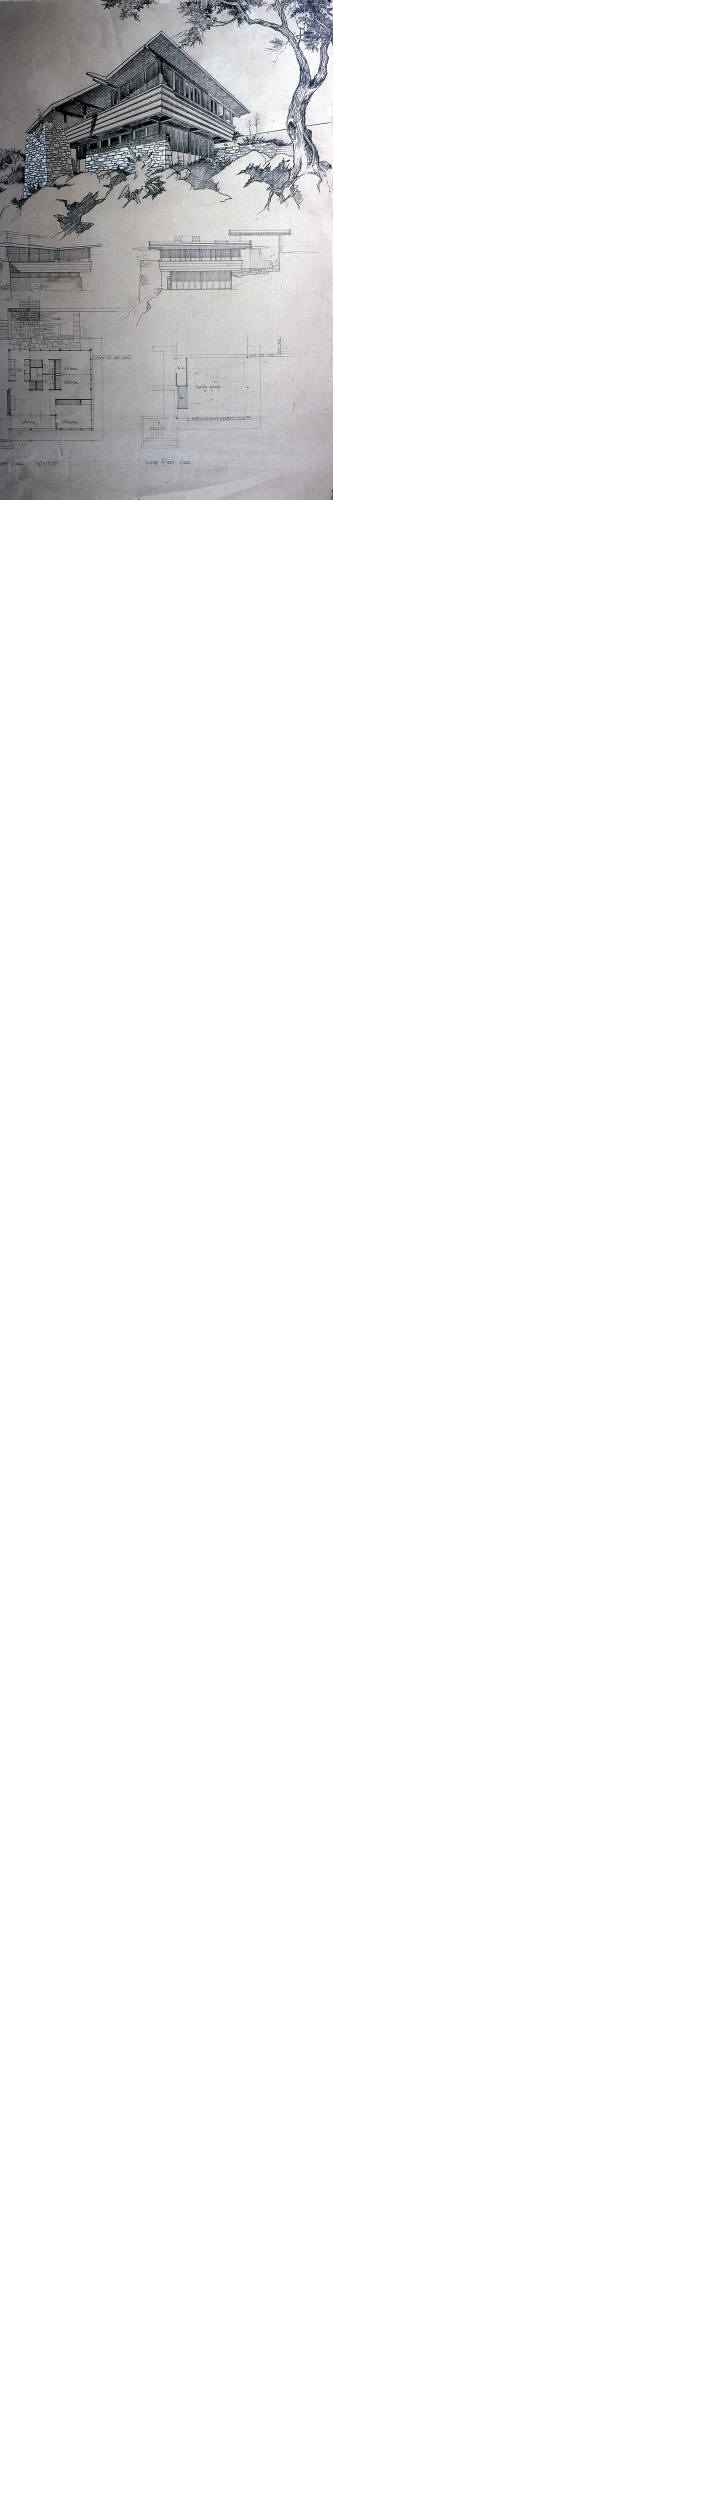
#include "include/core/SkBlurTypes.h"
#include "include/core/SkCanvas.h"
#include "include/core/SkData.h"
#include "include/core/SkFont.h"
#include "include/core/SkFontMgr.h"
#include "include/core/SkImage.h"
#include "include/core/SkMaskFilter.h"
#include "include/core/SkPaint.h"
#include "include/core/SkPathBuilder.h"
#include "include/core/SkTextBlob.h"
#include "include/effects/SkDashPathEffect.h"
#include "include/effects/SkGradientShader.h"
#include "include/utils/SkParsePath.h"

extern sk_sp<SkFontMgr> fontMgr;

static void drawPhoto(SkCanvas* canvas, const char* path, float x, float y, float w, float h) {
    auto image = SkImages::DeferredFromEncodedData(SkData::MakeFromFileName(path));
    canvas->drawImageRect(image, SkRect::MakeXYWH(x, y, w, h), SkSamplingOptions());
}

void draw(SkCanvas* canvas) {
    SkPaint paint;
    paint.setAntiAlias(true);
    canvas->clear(0xFFFFFFFF);
    drawPhoto(canvas, "assets/img1.png", 0, 0, 333, 500);
}
